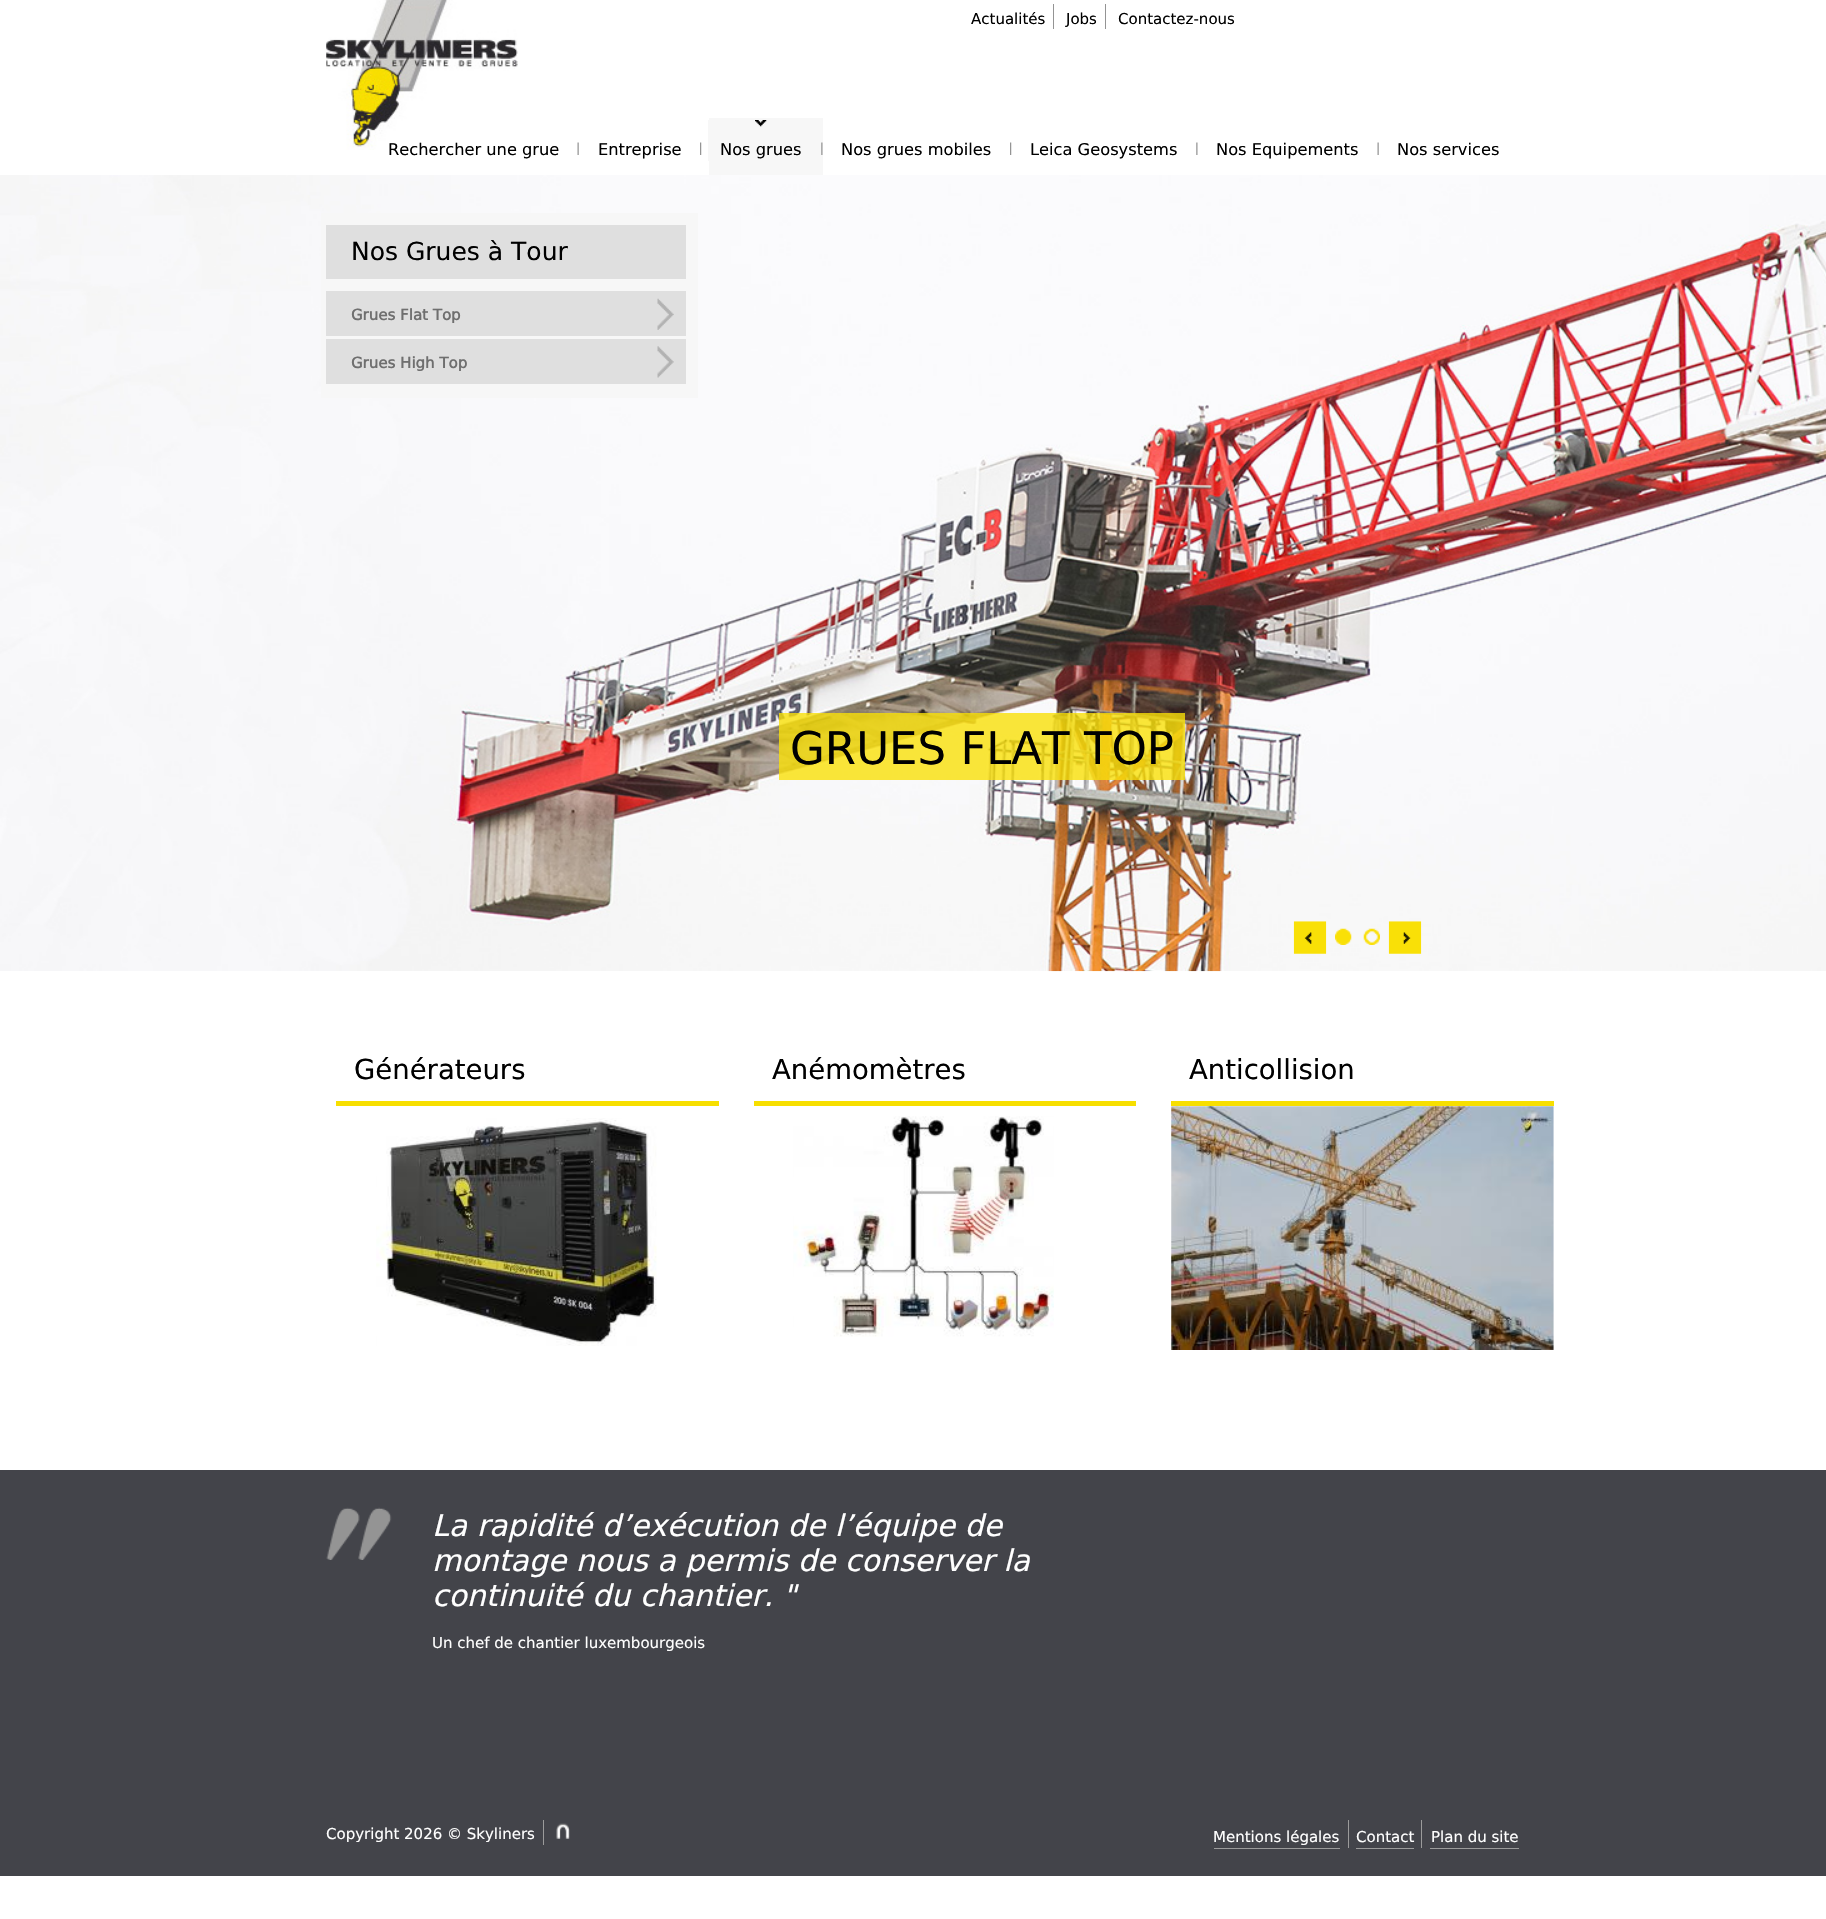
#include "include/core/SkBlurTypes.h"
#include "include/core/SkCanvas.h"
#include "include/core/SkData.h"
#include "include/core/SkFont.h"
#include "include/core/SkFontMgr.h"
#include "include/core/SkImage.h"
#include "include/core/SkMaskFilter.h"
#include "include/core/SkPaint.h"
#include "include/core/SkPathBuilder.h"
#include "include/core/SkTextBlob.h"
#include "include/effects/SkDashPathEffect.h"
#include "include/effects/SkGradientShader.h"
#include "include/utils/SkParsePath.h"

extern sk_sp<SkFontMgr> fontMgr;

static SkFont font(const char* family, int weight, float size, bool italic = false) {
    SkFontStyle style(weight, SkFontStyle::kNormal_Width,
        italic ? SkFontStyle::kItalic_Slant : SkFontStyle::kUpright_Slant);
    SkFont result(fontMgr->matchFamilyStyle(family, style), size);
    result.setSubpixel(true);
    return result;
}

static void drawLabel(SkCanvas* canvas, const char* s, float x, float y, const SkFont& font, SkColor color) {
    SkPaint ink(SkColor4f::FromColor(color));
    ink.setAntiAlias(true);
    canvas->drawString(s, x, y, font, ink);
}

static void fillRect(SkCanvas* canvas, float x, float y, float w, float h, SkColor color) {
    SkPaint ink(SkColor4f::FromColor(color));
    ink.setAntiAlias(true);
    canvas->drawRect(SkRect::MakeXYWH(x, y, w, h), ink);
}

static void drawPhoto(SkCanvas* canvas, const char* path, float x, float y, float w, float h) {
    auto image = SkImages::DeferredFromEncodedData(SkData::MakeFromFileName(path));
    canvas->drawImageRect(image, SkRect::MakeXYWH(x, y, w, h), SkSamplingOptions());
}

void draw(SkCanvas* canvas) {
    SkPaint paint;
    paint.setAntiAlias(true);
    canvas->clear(0xFFFFFFFF);
    drawPhoto(canvas, "assets/img1.png", 326, 0, 192, 150);
    SkFont font1 = font("DejaVu Sans", 400, 15);
    drawLabel(canvas, "Actualités", 971, 24, font1, 0xFF000000);
    fillRect(canvas, 1053, 4, 1, 25, 0xFF949494);
    drawLabel(canvas, "Jobs", 1066, 24, font1, 0xFF000000);
    fillRect(canvas, 1105, 4, 1, 25, 0xFF949494);
    drawLabel(canvas, "Contactez-nous", 1118, 24, font1, 0xFF000000);
    drawPhoto(canvas, "assets/img2.png", 577, 142, 2, 13);
    SkFont font2 = font("DejaVu Sans", 400, 16.25f);
    drawLabel(canvas, "Rechercher une grue", 388, 155, font2, 0xFF000000);
    drawPhoto(canvas, "assets/img3.png", 700, 142, 2, 13);
    drawLabel(canvas, "Entreprise", 598, 155, font2, 0xFF000000);
    fillRect(canvas, 709, 118, 114, 57, 0xFFF7F7F7);
    drawPhoto(canvas, "assets/img4.png", 821, 142, 2, 13);
    fillRect(canvas, 708, 120, 1, 41, 0xFFF7F7F7);
    drawPhoto(canvas, "assets/img5.png", 755, 120, 12, 7);
    drawLabel(canvas, "Nos grues", 720, 155, font2, 0xFF000000);
    drawPhoto(canvas, "assets/img3.png", 1010, 142, 2, 13);
    drawLabel(canvas, "Nos grues mobiles", 841, 155, font2, 0xFF000000);
    drawPhoto(canvas, "assets/img6.png", 1196, 142, 2, 13);
    drawLabel(canvas, "Leica Geosystems", 1030, 155, font2, 0xFF000000);
    drawPhoto(canvas, "assets/img2.png", 1377, 142, 2, 13);
    drawLabel(canvas, "Nos Equipements", 1216, 155, font2, 0xFF000000);
    drawLabel(canvas, "Nos services", 1397, 155, font2, 0xFF000000);
    drawPhoto(canvas, "assets/img9.png", 0, 175, 1826, 797);
    fillRect(canvas, 321, 213, 377, 185, 0xF2F7F7F7);
    fillRect(canvas, 326, 225, 360, 54, 0xFFDFDFDF);
    SkFont font3 = font("DejaVu Sans", 400, 25);
    drawLabel(canvas, "Nos Grues à Tour", 351, 260, font3, 0xFF000000);
    fillRect(canvas, 326, 291, 360, 45, 0xFFDFDFDF);
    drawPhoto(canvas, "assets/img7.png", 657, 298, 17, 32);
    SkFont font4 = font("DejaVu Sans", 700, 15);
    drawLabel(canvas, "Grues Flat Top", 351, 320, font4, 0xFF6F6F6F);
    fillRect(canvas, 326, 339, 360, 45, 0xFFDFDFDF);
    drawPhoto(canvas, "assets/img8.png", 657, 346, 17, 32);
    drawLabel(canvas, "Grues High Top", 351, 368, font4, 0xFF6F6F6F);
    fillRect(canvas, 779, 713, 406, 67, 0xCCF9E007);
    SkFont font5 = font("DejaVu Sans", 400, 45);
    drawLabel(canvas, "GRUES FLAT TOP", 790, 764, font5, 0xFF000000);
    drawPhoto(canvas, "assets/img10.png", 1293, 921, 34, 33);
    drawPhoto(canvas, "assets/img11.png", 1335, 928, 17, 17);
    drawPhoto(canvas, "assets/img12.png", 1363, 928, 17, 17);
    drawPhoto(canvas, "assets/img13.png", 1388, 921, 34, 33);
    SkFont font6 = font("DejaVu Sans", 400, 27.5f);
    drawLabel(canvas, "Générateurs", 354, 1079, font6, 0xFF000000);
    fillRect(canvas, 336, 1101, 383, 5, 0xFFF7DF00);
    drawPhoto(canvas, "assets/img14.png", 376, 1118, 281, 228);
    drawLabel(canvas, "Anémomètres", 772, 1079, font6, 0xFF000000);
    fillRect(canvas, 754, 1101, 382, 5, 0xFFF7DF00);
    drawPhoto(canvas, "assets/img15.png", 793, 1116, 261, 221);
    drawLabel(canvas, "Anticollision", 1189, 1079, font6, 0xFF000000);
    fillRect(canvas, 1171, 1101, 383, 5, 0xFFF7DF00);
    drawPhoto(canvas, "assets/img16.png", 1171, 1106, 383, 244);
    fillRect(canvas, 0, 1470, 1826, 406, 0xFF43444A);
    drawPhoto(canvas, "assets/img17.png", 326, 1507, 66, 53);
    SkFont font7 = font("DejaVu Sans", 400, 30, true);
    drawLabel(canvas, "La rapidité d’exécution de l’équipe de", 432, 1536, font7, 0xFFFFFFFF);
    drawLabel(canvas, "montage nous a permis de conserver la", 432, 1571, font7, 0xFFFFFFFF);
    drawLabel(canvas, "continuité du chantier. \"", 432, 1606, font7, 0xFFFFFFFF);
    drawLabel(canvas, "Un chef de chantier luxembourgeois", 432, 1648, font1, 0xFFFFFFFF);
    drawLabel(canvas, "Copyright 2026 © Skyliners", 326, 1839, font1, 0xFFFFFFFF);
    drawPhoto(canvas, "assets/img18.png", 556, 1823, 14, 16);
    fillRect(canvas, 543, 1820, 1, 25, 0xFF9B9B9B);
    fillRect(canvas, 1348, 1820, 1, 28, 0xFF9B9B9B);
    drawLabel(canvas, "Mentions légales", 1213, 1842, font1, 0xFFFFFFFF);
    fillRect(canvas, 1214, 1848, 126, 1, 0xFF9B9B9B);
    fillRect(canvas, 1421, 1820, 1, 28, 0xFF9B9B9B);
    drawLabel(canvas, "Contact", 1356, 1842, font1, 0xFFFFFFFF);
    fillRect(canvas, 1356, 1848, 58, 1, 0xFF9B9B9B);
    drawLabel(canvas, "Plan du site", 1431, 1842, font1, 0xFFFFFFFF);
    fillRect(canvas, 1430, 1848, 89, 1, 0xFF9B9B9B);
}
